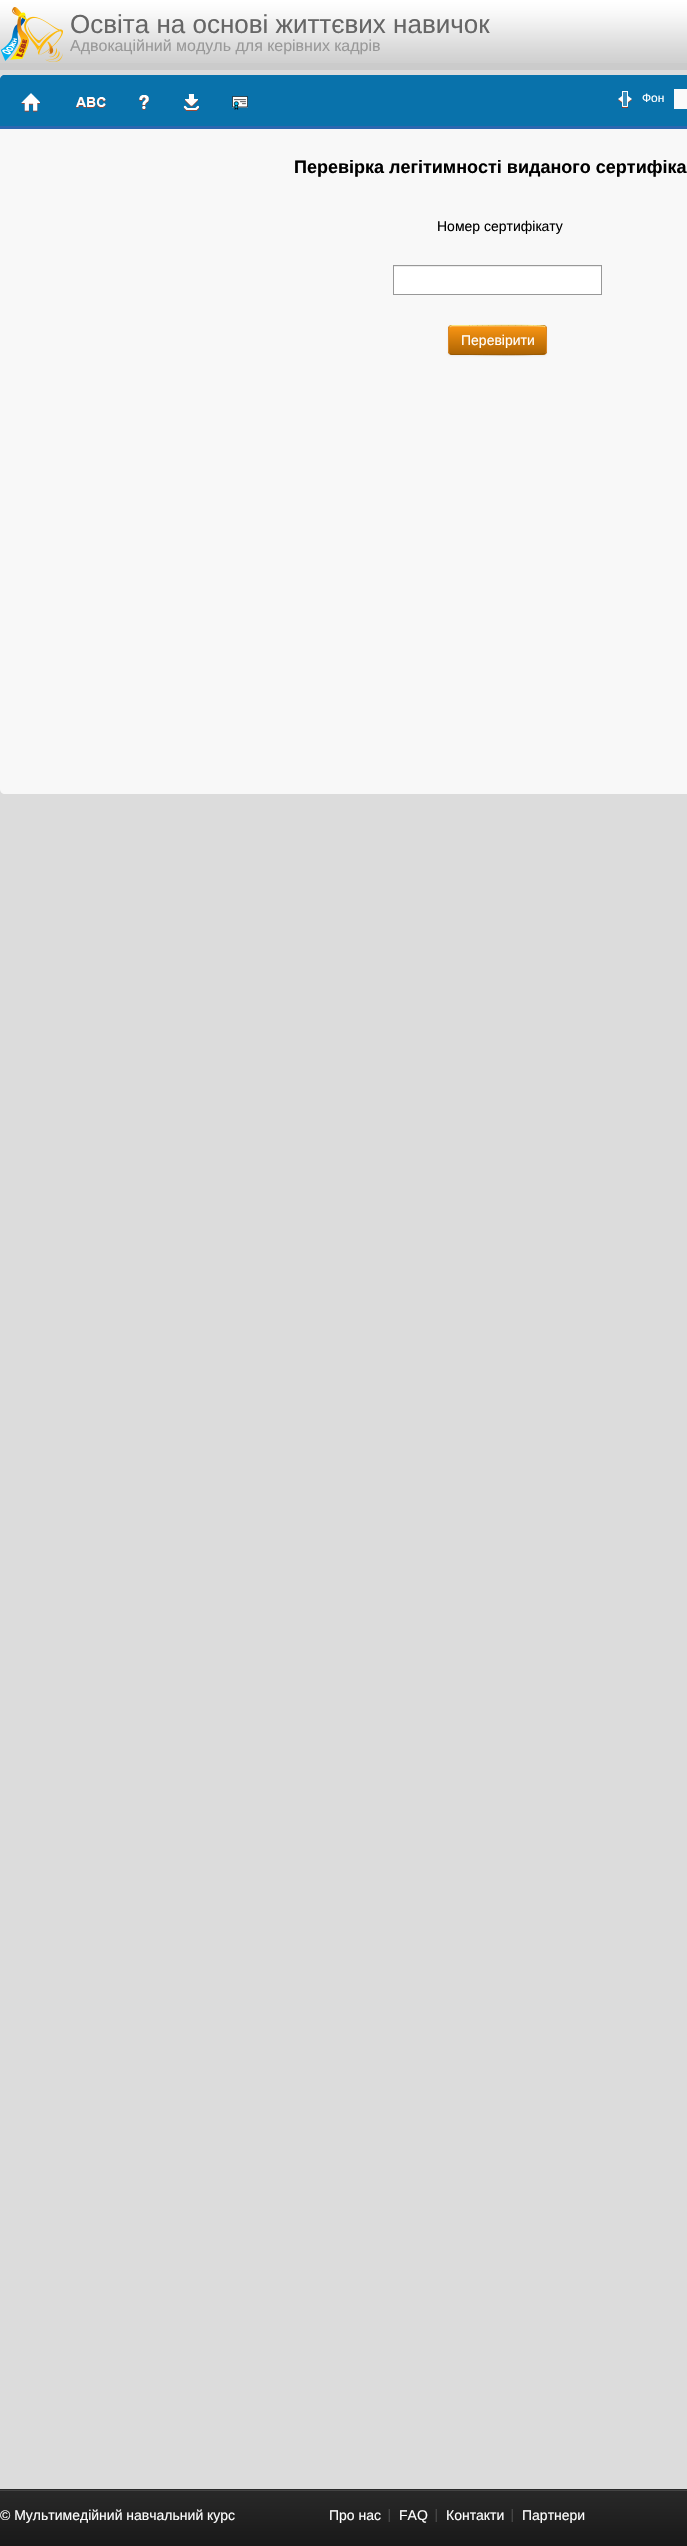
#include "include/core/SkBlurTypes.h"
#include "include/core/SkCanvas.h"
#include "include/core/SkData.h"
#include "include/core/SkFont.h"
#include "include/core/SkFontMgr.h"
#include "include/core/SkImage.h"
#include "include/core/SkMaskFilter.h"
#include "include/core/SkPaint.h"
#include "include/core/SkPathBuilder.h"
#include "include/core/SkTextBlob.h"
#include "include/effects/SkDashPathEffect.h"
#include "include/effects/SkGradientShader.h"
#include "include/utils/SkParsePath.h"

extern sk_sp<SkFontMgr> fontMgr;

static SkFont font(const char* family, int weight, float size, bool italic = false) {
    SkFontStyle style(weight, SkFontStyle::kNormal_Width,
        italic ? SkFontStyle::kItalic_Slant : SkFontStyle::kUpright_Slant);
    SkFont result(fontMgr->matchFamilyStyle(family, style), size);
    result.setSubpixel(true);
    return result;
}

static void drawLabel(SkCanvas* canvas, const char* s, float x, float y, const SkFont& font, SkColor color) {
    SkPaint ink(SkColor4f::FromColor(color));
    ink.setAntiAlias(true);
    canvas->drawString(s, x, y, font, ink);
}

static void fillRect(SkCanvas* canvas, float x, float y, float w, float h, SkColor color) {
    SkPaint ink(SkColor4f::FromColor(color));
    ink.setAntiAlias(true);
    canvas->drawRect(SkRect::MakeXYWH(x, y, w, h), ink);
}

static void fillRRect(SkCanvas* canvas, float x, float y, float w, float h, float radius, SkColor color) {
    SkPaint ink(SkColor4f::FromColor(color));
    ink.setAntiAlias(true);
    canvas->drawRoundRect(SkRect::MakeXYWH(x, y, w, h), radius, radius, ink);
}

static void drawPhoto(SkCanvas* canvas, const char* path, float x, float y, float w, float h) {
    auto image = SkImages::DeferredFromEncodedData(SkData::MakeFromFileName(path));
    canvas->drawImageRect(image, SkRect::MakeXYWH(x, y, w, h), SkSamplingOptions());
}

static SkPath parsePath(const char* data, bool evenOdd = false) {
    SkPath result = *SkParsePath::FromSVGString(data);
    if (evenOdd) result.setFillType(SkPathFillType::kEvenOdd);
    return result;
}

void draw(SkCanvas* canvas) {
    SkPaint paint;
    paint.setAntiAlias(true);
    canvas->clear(0xFFDCDCDC);
    fillRect(canvas, 0, 63, 687, 7, 0xFFCBCBCB);
    drawPhoto(canvas, "assets/img1.png", 0, 0, 687, 63);
    drawPhoto(canvas, "assets/img2.png", 0, 7, 63, 55);
    SkFont font1 = font("Liberation Sans", 400, 26);
    drawLabel(canvas, "Освіта на основі життєвих навичок", 70, 33, font1, 0xFF666666);
    SkFont font2 = font("Liberation Sans", 400, 16);
    drawLabel(canvas, "Адвокаційний модуль для керівних кадрів", 70, 51, font2, 0xFF999999);
    paint.setColor(0xFF2B67B0);
    canvas->drawPath(parsePath("M5 75H687C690 75 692 77 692 80V129H0V80C0 77 2 75 5 75Z"), paint);
    drawPhoto(canvas, "assets/img3.png", 0, 75, 687, 51);
    drawPhoto(canvas, "assets/img4.png", 21, 93, 19, 19);
    drawPhoto(canvas, "assets/img5.png", 76, 97, 30, 11);
    drawPhoto(canvas, "assets/img6.png", 139, 95, 10, 15);
    drawPhoto(canvas, "assets/img7.png", 183, 94, 16, 17);
    drawPhoto(canvas, "assets/img8.png", 232, 96, 16, 14);
    drawPhoto(canvas, "assets/img9.png", 618, 91, 14, 17);
    SkFont font3 = font("Liberation Sans", 400, 12);
    drawLabel(canvas, "Фон", 642, 102, font3, 0xFFFFFFFF);
    fillRect(canvas, 674, 89, 13, 20, 0xFFFAFAFA);
    paint.setColor(0xFFF8F8F8);
    canvas->drawPath(parsePath("M0 129H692V789C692 792 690 794 687 794H5C2 794 0 792 0 789Z"), paint);
    SkFont font4 = font("Liberation Sans", 700, 18);
    drawLabel(canvas, "Перевірка легітимності виданого сертифіка", 294, 173, font4, 0xFF000000);
    SkFont font5 = font("Liberation Sans", 400, 14);
    drawLabel(canvas, "Номер сертифікату", 437, 231, font5, 0xFF000000);
    fillRect(canvas, 394, 267, 207, 27, 0xFFFFFFFF);
    fillRect(canvas, 394, 266, 207, 1, 0xFFECECEC);
    paint.setStroke(true);
    paint.setStrokeWidth(1);
    paint.setColor(0xFF989898);
    canvas->drawRect(SkRect::MakeXYWH(393.5f, 265.5f, 208, 29), paint);
    paint.setStroke(false);
    paint.setColor(0x0D000000);
    paint.setMaskFilter(SkMaskFilter::MakeBlur(kNormal_SkBlurStyle, 1));
    canvas->drawRoundRect(SkRect::MakeXYWH(448, 326, 99, 30), 4, 4, paint);
    paint.setMaskFilter(nullptr);
    fillRRect(canvas, 448, 325, 99, 30, 4, 0xFFAF6504);
    canvas->save();
    canvas->clipPath(parsePath("M452 325H543C545 325 547 327 547 329V351C547 353 545 355 543 355H452C450 355 448 353 448 351V329C448 327 450 325 452 325Z"), true);
    {
        const SkColor colors[] = {0xFFFA9614, 0xFFAE6403};
        const float stops[] = {0, 1};
        const SkPoint ends[] = {{498, 326}, {498, 354}};
        paint.setShader(SkGradientShader::MakeLinear(ends, colors, stops, 2, SkTileMode::kClamp));
        paint.setAlpha(255);
    }
    canvas->drawRect(SkRect::MakeXYWH(448, 326, 99, 28), paint);
    canvas->restore();
    paint.setShader(nullptr);
    paint.setColor(0x33FFFFFF);
    canvas->drawPath(parsePath("M452 327H543C545 327 546 328 546 330C546 322 531 326 528 326H467C464 326 449 322 449 330C449 328 450 327 452 327Z"), paint);
    paint.setStroke(true);
    paint.setColor(0xFFF9E780);
    canvas->drawPath(parsePath("M449.5 326.5L452 325.5H467C476 325.5 543 324.5 545 326.5H545.5"), paint);
    paint.setColor(0xFFD98626);
    canvas->drawPath(parsePath("M545.5 326.5C546 327 546.5 328 546.5 329V351C546.5 352 546 353 545.5 353.5"), paint);
    paint.setColor(0xFF985803);
    canvas->drawPath(parsePath("M545.5 353.5H545C543 355.5 476 354.5 467 354.5H452L449.5 353.5"), paint);
    paint.setColor(0xFFD98626);
    canvas->drawPath(parsePath("M449.5 353.5C449 353 448.5 352 448.5 351V329C448.5 328 449 327 449.5 326.5"), paint);
    drawLabel(canvas, "Перевірити", 461, 345, font5, 0xFFFFFFFF);
    drawPhoto(canvas, "assets/img10.png", 0, 2489, 687, 57);
    drawLabel(canvas, "© Мультимедійний навчальний курc", 0, 2520, font5, 0xFFFFFFFF);
    drawPhoto(canvas, "assets/img11.png", 388, 2509, 2, 13);
    drawLabel(canvas, "Про нас", 329, 2520, font5, 0xFFFFFFFF);
    drawPhoto(canvas, "assets/img11.png", 435, 2509, 2, 13);
    drawLabel(canvas, "FAQ", 399, 2520, font5, 0xFFFFFFFF);
    drawPhoto(canvas, "assets/img11.png", 511, 2509, 2, 13);
    drawLabel(canvas, "Контакти", 446, 2520, font5, 0xFFFFFFFF);
    drawLabel(canvas, "Партнери", 522, 2520, font5, 0xFFFFFFFF);
}
